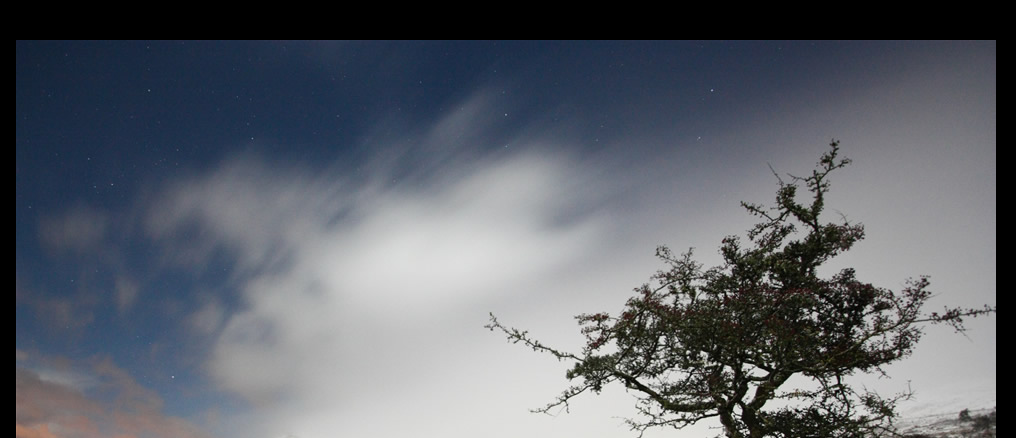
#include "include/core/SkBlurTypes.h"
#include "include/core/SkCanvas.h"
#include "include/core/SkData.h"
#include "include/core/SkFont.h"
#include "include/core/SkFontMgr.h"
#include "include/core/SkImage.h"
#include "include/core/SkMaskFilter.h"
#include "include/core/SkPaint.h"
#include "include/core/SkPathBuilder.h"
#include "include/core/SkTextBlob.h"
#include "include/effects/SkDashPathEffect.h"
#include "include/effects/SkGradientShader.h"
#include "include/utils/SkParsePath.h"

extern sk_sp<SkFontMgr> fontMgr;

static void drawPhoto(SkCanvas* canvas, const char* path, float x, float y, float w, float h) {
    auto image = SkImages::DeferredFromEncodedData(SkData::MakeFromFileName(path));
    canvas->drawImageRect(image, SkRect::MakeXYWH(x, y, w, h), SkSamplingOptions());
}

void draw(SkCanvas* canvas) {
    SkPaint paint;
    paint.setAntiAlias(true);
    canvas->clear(0xFF000000);
    drawPhoto(canvas, "assets/img1.png", 16, 40, 980, 398);
}
